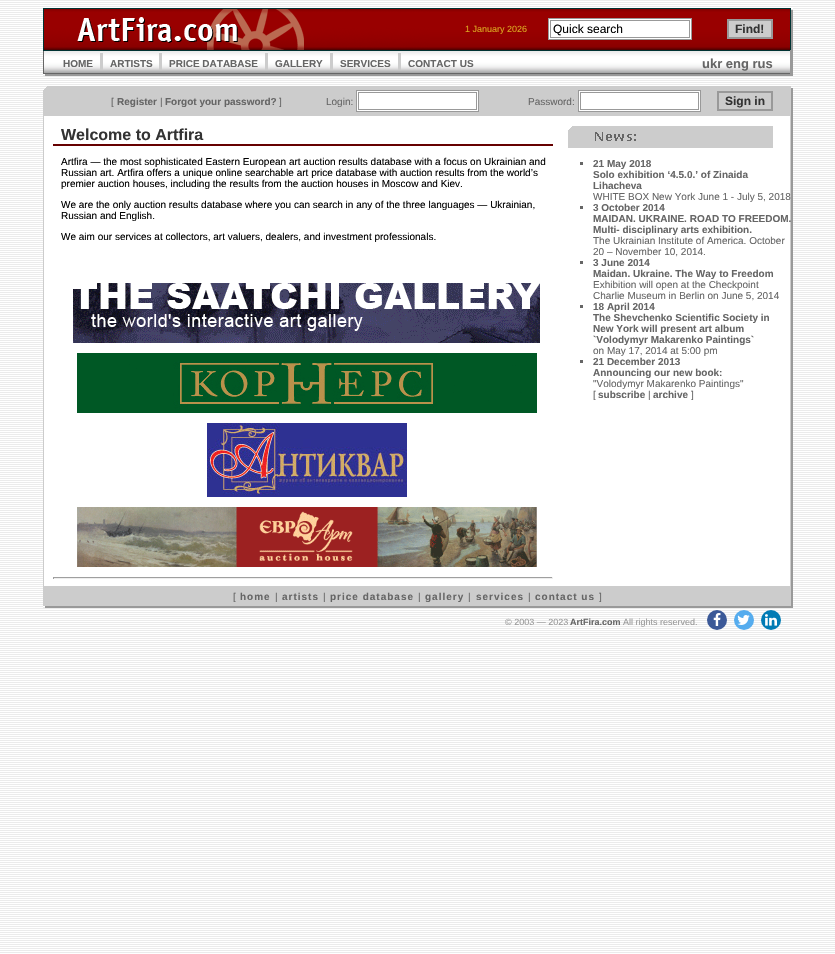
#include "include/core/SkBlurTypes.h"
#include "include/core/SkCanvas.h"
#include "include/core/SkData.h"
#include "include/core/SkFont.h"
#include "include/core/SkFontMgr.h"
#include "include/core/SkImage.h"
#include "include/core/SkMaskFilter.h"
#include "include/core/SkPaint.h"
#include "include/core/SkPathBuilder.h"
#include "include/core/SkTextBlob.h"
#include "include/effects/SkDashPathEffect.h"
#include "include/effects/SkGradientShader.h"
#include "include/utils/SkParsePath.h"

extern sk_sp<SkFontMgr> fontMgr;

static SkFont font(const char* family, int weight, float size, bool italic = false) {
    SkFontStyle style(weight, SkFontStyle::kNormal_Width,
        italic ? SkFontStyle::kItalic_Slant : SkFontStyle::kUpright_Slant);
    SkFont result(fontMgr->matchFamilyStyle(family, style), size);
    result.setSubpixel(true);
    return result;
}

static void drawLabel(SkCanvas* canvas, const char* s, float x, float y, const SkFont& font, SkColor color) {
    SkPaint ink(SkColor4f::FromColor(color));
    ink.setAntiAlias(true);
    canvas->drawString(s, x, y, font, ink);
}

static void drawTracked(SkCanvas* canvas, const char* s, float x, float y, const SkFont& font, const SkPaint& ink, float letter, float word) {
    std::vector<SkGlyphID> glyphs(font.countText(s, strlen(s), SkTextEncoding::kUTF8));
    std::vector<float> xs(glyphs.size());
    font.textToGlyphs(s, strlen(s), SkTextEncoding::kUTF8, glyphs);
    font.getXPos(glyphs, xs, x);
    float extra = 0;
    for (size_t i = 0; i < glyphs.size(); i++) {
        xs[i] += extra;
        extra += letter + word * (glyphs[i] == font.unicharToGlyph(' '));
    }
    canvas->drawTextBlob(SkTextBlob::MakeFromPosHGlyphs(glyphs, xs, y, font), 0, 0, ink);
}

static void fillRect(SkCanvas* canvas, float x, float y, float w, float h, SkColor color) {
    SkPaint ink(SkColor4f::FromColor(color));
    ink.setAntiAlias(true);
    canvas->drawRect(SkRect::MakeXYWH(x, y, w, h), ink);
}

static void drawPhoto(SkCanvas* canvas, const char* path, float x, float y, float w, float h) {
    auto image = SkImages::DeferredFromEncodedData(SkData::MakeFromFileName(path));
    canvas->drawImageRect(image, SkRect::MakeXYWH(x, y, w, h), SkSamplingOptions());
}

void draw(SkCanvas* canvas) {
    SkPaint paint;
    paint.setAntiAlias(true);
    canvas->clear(0xFFFFFFFF);
    drawPhoto(canvas, "assets/img1.png", 0, 0, 835, 953);
    drawPhoto(canvas, "assets/img2.png", 43, 8, 387, 42);
    drawPhoto(canvas, "assets/img3.png", 430, 8, 343, 42);
    SkFont font1 = font("Liberation Sans", 400, 9);
    drawLabel(canvas, "1 January 2026", 465, 32, font1, 0xFFDAA520);
    paint.setColor(0xFFFFFFFF);
    canvas->drawRect(SkRect::MakeXYWH(548.5f, 18.5f, 143, 21), paint);
    paint.setStroke(true);
    paint.setStrokeWidth(1);
    paint.setColor(0xFF999999);
    canvas->drawRect(SkRect::MakeXYWH(548.5f, 18.5f, 143, 21), paint);
    canvas->drawRect(SkRect::MakeXYWH(550.5f, 20.5f, 139, 17), paint);
    SkFont font2 = font("Liberation Sans", 400, 12);
    drawLabel(canvas, "Quick search", 553, 33, font2, 0xFF000000);
    paint.setStroke(false);
    paint.setColor(0xFFCCCCCC);
    canvas->drawRect(SkRect::MakeXYWH(728, 20, 44, 18), paint);
    paint.setStroke(true);
    paint.setStrokeWidth(2);
    paint.setColor(0xFF999999);
    canvas->drawRect(SkRect::MakeXYWH(728, 20, 44, 18), paint);
    SkFont font3 = font("Liberation Sans", 700, 12);
    drawLabel(canvas, "Find!", 735, 33, font3, 0xFF333333);
    drawPhoto(canvas, "assets/img4.png", 773, 8, 20, 42);
    drawPhoto(canvas, "assets/img5.png", 43, 50, 750, 26);
    drawPhoto(canvas, "assets/img6.png", 43, 51, 2, 25);
    SkFont font4 = font("Liberation Sans", 700, 10);
    drawLabel(canvas, "HOME", 63, 67, font4, 0xFF666666);
    fillRect(canvas, 100, 53, 3, 17, 0xFFCCCCCC);
    drawLabel(canvas, "ARTISTS", 110, 67, font4, 0xFF666666);
    fillRect(canvas, 159, 53, 3, 17, 0xFFCCCCCC);
    drawLabel(canvas, "PRICE DATABASE", 169, 67, font4, 0xFF666666);
    fillRect(canvas, 265, 53, 3, 17, 0xFFCCCCCC);
    drawLabel(canvas, "GALLERY", 275, 67, font4, 0xFF666666);
    fillRect(canvas, 330, 53, 3, 17, 0xFFCCCCCC);
    drawLabel(canvas, "SERVICES", 340, 67, font4, 0xFF666666);
    fillRect(canvas, 398, 53, 3, 17, 0xFFCCCCCC);
    drawLabel(canvas, "CONTACT US", 408, 67, font4, 0xFF666666);
    SkFont font5 = font("Liberation Sans", 700, 13);
    drawLabel(canvas, "ukr eng rus", 702, 68, font5, 0xFF666666);
    fillRect(canvas, 790, 50, 3, 24, 0xFF999999);
    drawPhoto(canvas, "assets/img7.png", 43, 86, 20, 30);
    fillRect(canvas, 63, 86, 710, 30, 0xFFCCCCCC);
    SkFont font6 = font("Liberation Sans", 400, 10);
    drawLabel(canvas, "[", 111, 105, font6, 0xFF666666);
    drawLabel(canvas, "Register", 117, 105, font4, 0xFF666666);
    drawLabel(canvas, "|", 160, 105, font6, 0xFF666666);
    drawLabel(canvas, "Forgot your password?", 165, 105, font4, 0xFF666666);
    drawLabel(canvas, "]", 279, 105, font6, 0xFF666666);
    drawLabel(canvas, "Login:", 326, 105, font6, 0xFF666666);
    paint.setStroke(false);
    paint.setColor(0xFFFFFFFF);
    canvas->drawRect(SkRect::MakeXYWH(356.5f, 90.5f, 122, 21), paint);
    paint.setStroke(true);
    paint.setStrokeWidth(1);
    paint.setColor(0xFF999999);
    canvas->drawRect(SkRect::MakeXYWH(356.5f, 90.5f, 122, 21), paint);
    canvas->drawRect(SkRect::MakeXYWH(358.5f, 92.5f, 118, 17), paint);
    drawLabel(canvas, "Password:", 528, 105, font6, 0xFF666666);
    paint.setStroke(false);
    paint.setColor(0xFFFFFFFF);
    canvas->drawRect(SkRect::MakeXYWH(578.5f, 90.5f, 122, 21), paint);
    paint.setStroke(true);
    paint.setColor(0xFF999999);
    canvas->drawRect(SkRect::MakeXYWH(578.5f, 90.5f, 122, 21), paint);
    canvas->drawRect(SkRect::MakeXYWH(580.5f, 92.5f, 118, 17), paint);
    paint.setStrokeWidth(2);
    canvas->drawRect(SkRect::MakeXYWH(718, 92, 54, 18), paint);
    drawLabel(canvas, "Sign in", 725, 105, font3, 0xFF333333);
    drawPhoto(canvas, "assets/img8.png", 773, 86, 20, 30);
    drawPhoto(canvas, "assets/img9.png", 43, 116, 750, 470);
    fillRect(canvas, 53, 144, 500, 2, 0xFF660000);
    SkFont font7 = font("Liberation Sans", 700, 16);
    drawLabel(canvas, "Welcome to Artfira", 61, 140, font7, 0xFF333333);
    drawLabel(canvas, "Artfira — the most sophisticated Eastern European art auction results database with a focus on Ukrainian and", 61, 165, font6, 0xFF000000);
    drawLabel(canvas, "Russian art. Artfira offers a unique online searchable art price database with auction results from the world’s", 61, 176, font6, 0xFF000000);
    drawLabel(canvas, "premier auction houses, including the results from the auction houses in Moscow and Kiev.", 61, 187, font6, 0xFF000000);
    drawLabel(canvas, "We are the only auction results database where you can search in any of the three languages — Ukrainian,", 61, 208, font6, 0xFF000000);
    drawLabel(canvas, "Russian and English.", 61, 219, font6, 0xFF000000);
    drawLabel(canvas, "We aim our services at collectors, art valuers, dealers, and investment professionals.", 61, 240, font6, 0xFF000000);
    drawPhoto(canvas, "assets/img10.png", 568, 126, 205, 22);
    fillRect(canvas, 580, 162, 3, 3, 0xFF666666);
    drawLabel(canvas, "21 May 2018", 593, 167, font4, 0xFF666666);
    drawLabel(canvas, "Solo exhibition ‘4.5.0.’ of Zinaida", 593, 178, font4, 0xFF666666);
    drawLabel(canvas, "Lihacheva", 593, 189, font4, 0xFF666666);
    drawLabel(canvas, "WHITE BOX New York June 1 - July 5, 2018", 593, 200, font6, 0xFF666666);
    fillRect(canvas, 580, 206, 3, 3, 0xFF666666);
    drawLabel(canvas, "3 October 2014", 593, 211, font4, 0xFF666666);
    drawLabel(canvas, "MAIDAN. UKRAINE. ROAD TO FREEDOM.", 593, 222, font4, 0xFF666666);
    drawLabel(canvas, "Multi- disciplinary arts exhibition.", 593, 233, font4, 0xFF666666);
    drawLabel(canvas, "The Ukrainian Institute of America. October", 593, 244, font6, 0xFF666666);
    drawLabel(canvas, "20 – November 10, 2014.", 593, 255, font6, 0xFF666666);
    fillRect(canvas, 580, 261, 3, 3, 0xFF666666);
    drawLabel(canvas, "3 June 2014", 593, 266, font4, 0xFF666666);
    drawLabel(canvas, "Maidan. Ukraine. The Way to Freedom", 593, 277, font4, 0xFF666666);
    drawLabel(canvas, "Exhibition will open at the Checkpoint", 593, 288, font6, 0xFF666666);
    drawLabel(canvas, "Charlie Museum in Berlin on June 5, 2014", 593, 299, font6, 0xFF666666);
    fillRect(canvas, 580, 305, 3, 3, 0xFF666666);
    drawLabel(canvas, "18 April 2014", 593, 310, font4, 0xFF666666);
    drawLabel(canvas, "The Shevchenko Scientific Society in", 593, 321, font4, 0xFF666666);
    drawLabel(canvas, "New York will present art album", 593, 332, font4, 0xFF666666);
    drawLabel(canvas, "`Volodymyr Makarenko Paintings`", 593, 343, font4, 0xFF666666);
    drawLabel(canvas, "on May 17, 2014 at 5:00 pm", 593, 354, font6, 0xFF666666);
    fillRect(canvas, 580, 360, 3, 3, 0xFF666666);
    drawLabel(canvas, "21 December 2013", 593, 365, font4, 0xFF666666);
    drawLabel(canvas, "Announcing our new book:", 593, 376, font4, 0xFF666666);
    drawLabel(canvas, "\"Volodymyr Makarenko Paintings\"", 593, 387, font6, 0xFF666666);
    drawLabel(canvas, "[", 593, 398, font6, 0xFF666666);
    drawLabel(canvas, "subscribe", 598, 398, font4, 0xFF666666);
    drawLabel(canvas, "|", 648, 398, font6, 0xFF666666);
    drawLabel(canvas, "archive", 653, 398, font4, 0xFF666666);
    drawLabel(canvas, "]", 691, 398, font6, 0xFF666666);
    drawPhoto(canvas, "assets/img11.png", 73, 283, 467, 60);
    drawPhoto(canvas, "assets/img12.png", 77, 353, 460, 60);
    drawPhoto(canvas, "assets/img13.png", 207, 423, 200, 74);
    drawPhoto(canvas, "assets/img14.png", 77, 507, 460, 60);
    fillRect(canvas, 53, 577, 500, 1, 0xFF9F9F9F);
    fillRect(canvas, 552, 577, 1, 2, 0xFFEEEEEE);
    fillRect(canvas, 53, 578, 500, 1, 0xFFEEEEEE);
    fillRect(canvas, 53, 577, 1, 2, 0xFF9F9F9F);
    drawPhoto(canvas, "assets/img15.png", 43, 586, 20, 22);
    drawPhoto(canvas, "assets/img16.png", 63, 586, 710, 22);
    paint.setStroke(false);
    paint.setColor(0xFF666666);
    drawTracked(canvas, "[", 233, 600, font6, paint, 1, 0);
    drawTracked(canvas, "home", 240, 600, font4, paint, 1, 0);
    drawTracked(canvas, "|", 275, 600, font6, paint, 1, 0);
    drawTracked(canvas, "artists", 282, 600, font4, paint, 1, 0);
    drawTracked(canvas, "|", 323, 600, font6, paint, 1, 0);
    drawTracked(canvas, "price database", 330, 600, font4, paint, 1, 0);
    drawTracked(canvas, "|", 418, 600, font6, paint, 1, 0);
    drawTracked(canvas, "gallery", 425, 600, font4, paint, 1, 0);
    drawTracked(canvas, "|", 468, 600, font6, paint, 1, 0);
    drawTracked(canvas, "services", 476, 600, font4, paint, 1, 0);
    drawTracked(canvas, "|", 528, 600, font6, paint, 1, 0);
    drawTracked(canvas, "contact us", 535, 600, font4, paint, 1, 0);
    drawTracked(canvas, "]", 599, 600, font6, paint, 1, 0);
    drawPhoto(canvas, "assets/img17.png", 773, 586, 20, 22);
    drawLabel(canvas, "© 2003 — 2023", 505, 625, font1, 0xFF999999);
    SkFont font8 = font("Liberation Sans", 700, 9);
    drawLabel(canvas, "ArtFira.com", 570, 625, font8, 0xFF666666);
    drawLabel(canvas, "All rights reserved.", 623, 625, font1, 0xFF999999);
    paint.setColor(0xFF3B5998);
    canvas->drawCircle(717, 620, 10, paint);
    drawPhoto(canvas, "assets/img18.png", 713, 613, 8, 13);
    paint.setColor(0xFF55ACEE);
    canvas->drawCircle(744, 620, 10, paint);
    drawPhoto(canvas, "assets/img19.png", 737, 615, 13, 10);
    paint.setColor(0xFF007BB5);
    canvas->drawCircle(771, 620, 10, paint);
    drawPhoto(canvas, "assets/img20.png", 765, 614, 12, 12);
}
